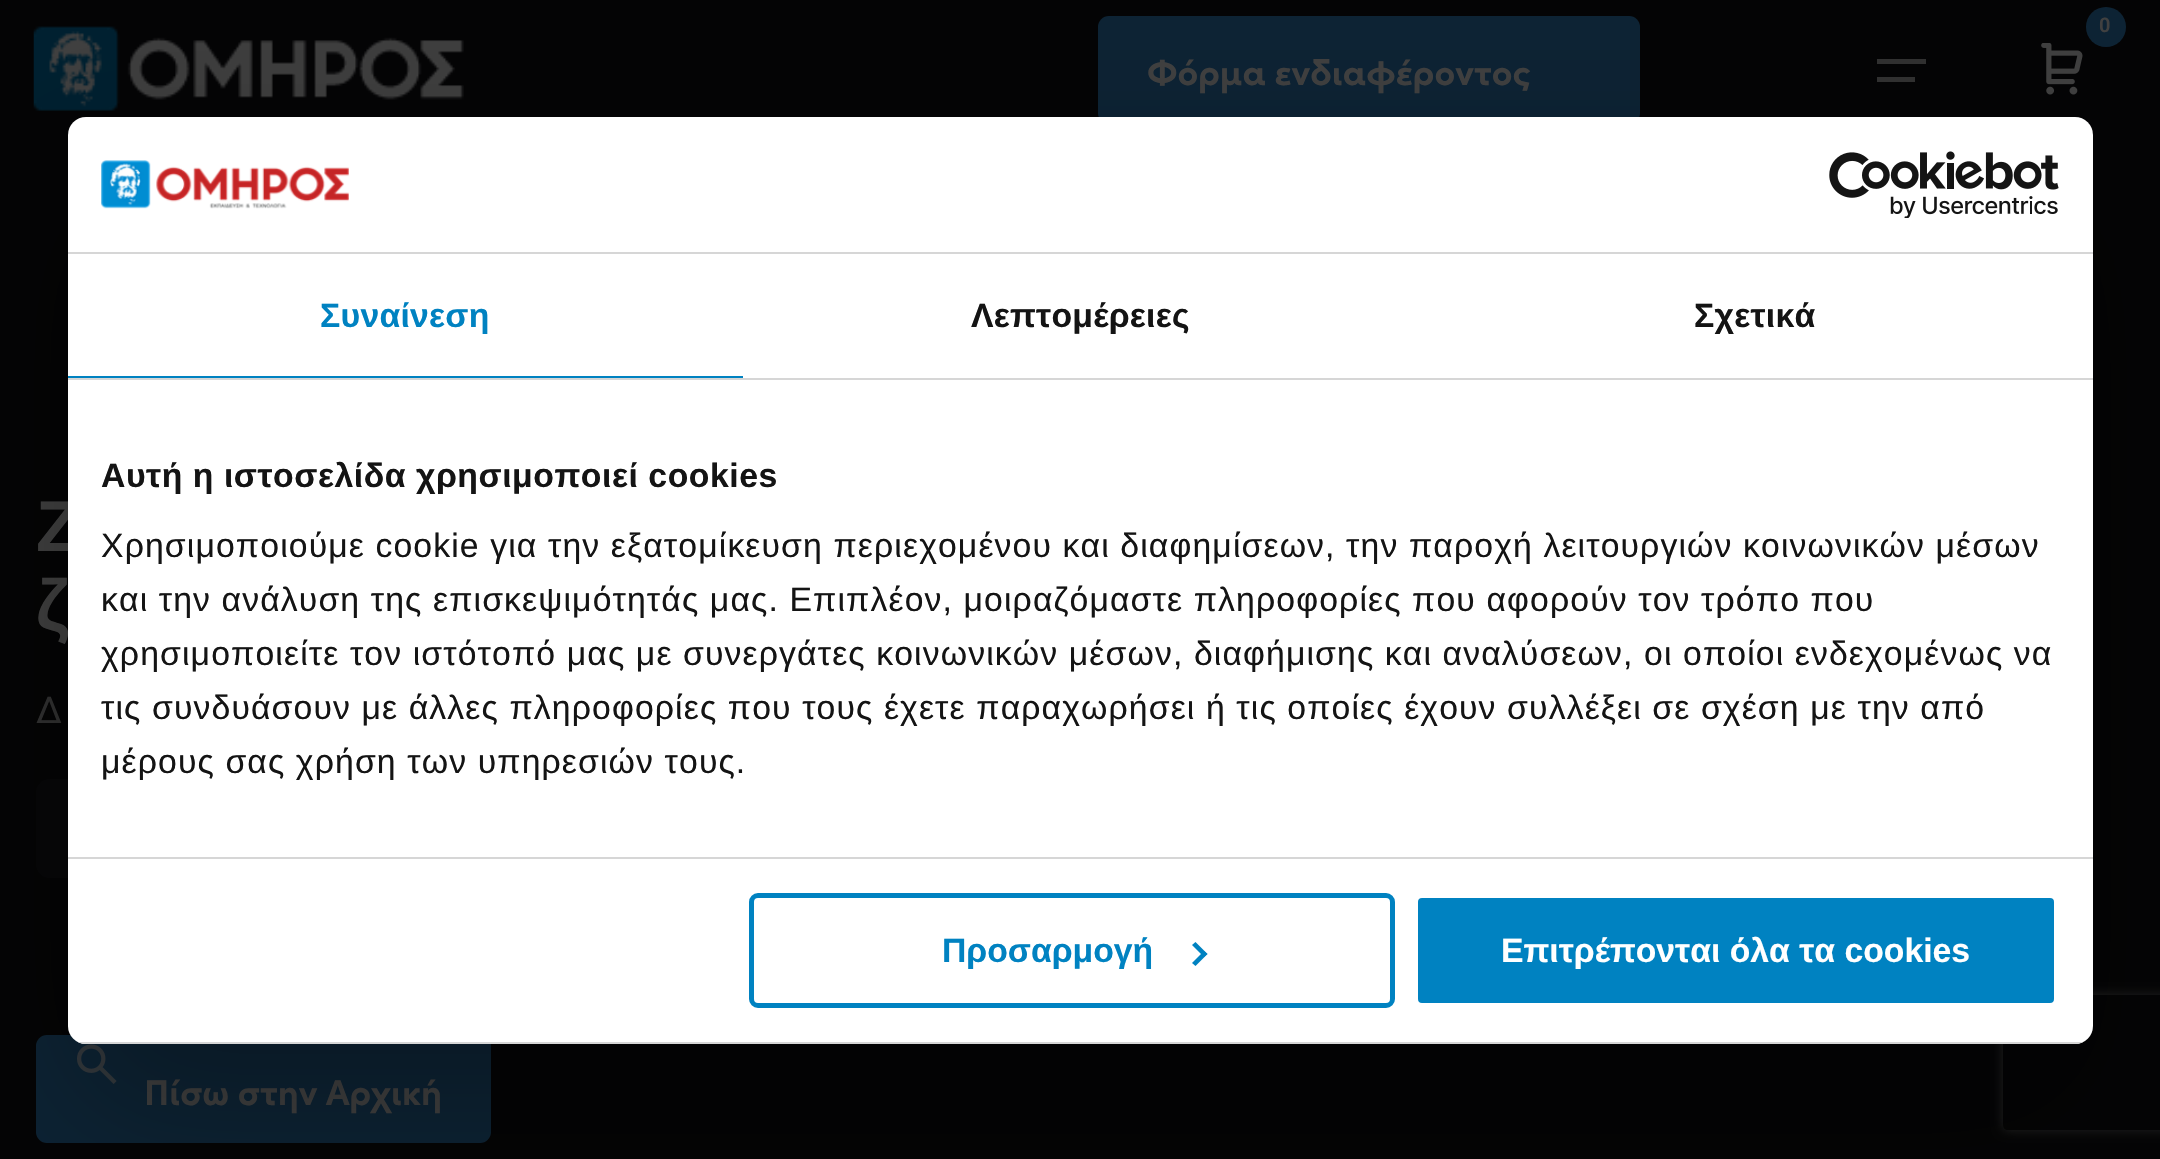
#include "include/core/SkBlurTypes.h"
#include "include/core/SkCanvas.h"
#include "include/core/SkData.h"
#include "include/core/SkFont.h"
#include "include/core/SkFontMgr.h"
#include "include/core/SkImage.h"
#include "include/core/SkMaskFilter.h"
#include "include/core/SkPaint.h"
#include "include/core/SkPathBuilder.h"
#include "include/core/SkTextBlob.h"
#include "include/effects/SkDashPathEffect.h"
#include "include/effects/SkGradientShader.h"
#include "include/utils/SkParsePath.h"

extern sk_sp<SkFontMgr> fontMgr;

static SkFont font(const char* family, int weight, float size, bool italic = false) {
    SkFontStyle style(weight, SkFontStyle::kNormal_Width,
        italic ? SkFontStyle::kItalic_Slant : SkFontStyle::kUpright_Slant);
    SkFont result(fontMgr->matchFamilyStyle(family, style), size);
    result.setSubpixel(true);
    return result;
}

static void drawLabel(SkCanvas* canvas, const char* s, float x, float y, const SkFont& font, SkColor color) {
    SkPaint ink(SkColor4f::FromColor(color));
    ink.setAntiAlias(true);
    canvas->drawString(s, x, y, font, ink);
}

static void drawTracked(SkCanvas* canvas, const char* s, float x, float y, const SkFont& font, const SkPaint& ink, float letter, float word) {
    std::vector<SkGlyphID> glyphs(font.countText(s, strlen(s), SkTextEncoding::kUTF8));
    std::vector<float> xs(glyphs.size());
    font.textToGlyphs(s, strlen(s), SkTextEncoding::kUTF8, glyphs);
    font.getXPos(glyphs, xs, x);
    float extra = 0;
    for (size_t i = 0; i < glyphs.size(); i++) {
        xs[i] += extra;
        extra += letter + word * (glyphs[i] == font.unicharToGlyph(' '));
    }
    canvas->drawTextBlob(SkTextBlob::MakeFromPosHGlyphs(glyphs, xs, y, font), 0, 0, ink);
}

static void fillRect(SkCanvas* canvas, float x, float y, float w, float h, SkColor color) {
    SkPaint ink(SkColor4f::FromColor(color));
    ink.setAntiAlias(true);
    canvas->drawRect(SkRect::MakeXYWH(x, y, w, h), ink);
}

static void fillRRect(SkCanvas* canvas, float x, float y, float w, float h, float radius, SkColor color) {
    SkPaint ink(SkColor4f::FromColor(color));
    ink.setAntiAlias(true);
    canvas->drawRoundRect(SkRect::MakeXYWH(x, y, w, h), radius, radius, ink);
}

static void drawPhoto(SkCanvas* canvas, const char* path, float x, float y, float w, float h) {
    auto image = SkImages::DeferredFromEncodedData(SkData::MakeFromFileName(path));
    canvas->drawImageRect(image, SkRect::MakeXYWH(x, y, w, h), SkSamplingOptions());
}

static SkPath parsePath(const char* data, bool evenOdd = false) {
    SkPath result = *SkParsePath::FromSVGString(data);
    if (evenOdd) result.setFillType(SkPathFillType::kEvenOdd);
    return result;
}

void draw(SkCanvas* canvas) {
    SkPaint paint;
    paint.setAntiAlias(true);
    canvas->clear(0xFF040405);
    drawPhoto(canvas, "assets/img1.png", 33, 26, 431, 85);
    paint.setColor(0xFF0D2334);
    canvas->drawCircle(2106, 27, 20, paint);
    SkFont font1 = font("Roboto", 600, 20);
    drawLabel(canvas, "0", 2099, 32, font1, 0xFF404040);
    drawPhoto(canvas, "assets/img2.png", 2041, 43, 42, 52);
    fillRRect(canvas, 1098, 16, 542, 108, 11, 0xFF0D2334);
    SkFont font2 = font("Sofia", 700, 36);
    drawLabel(canvas, "Φόρμα ενδιαφέροντος", 1147, 85, font2, 0xFF404040);
    fillRect(canvas, 1877, 59, 49, 5, 0xFF313131);
    fillRect(canvas, 1877, 77, 38, 5, 0xFF313131);
    SkFont font3 = font("Liberation Sans", 700, 72);
    paint.setColor(0xFF404040);
    drawTracked(canvas, "Ζ", 36, 551, font3, paint, -3, -2);
    drawTracked(canvas, "ζ", 36, 630, font3, paint, -3, -3);
    SkFont font4 = font("Roboto", 400, 37);
    drawLabel(canvas, "Δ", 36, 723, font4, 0xFF313131);
    fillRRect(canvas, 36, 779, 648, 99, 14, 0xFF070708);
    fillRRect(canvas, 36, 1035, 455, 108, 11, 0xFF0D2334);
    drawLabel(canvas, "Πίσω στην Αρχική", 144, 1105, font2, 0xFF404040);
    drawPhoto(canvas, "assets/img3.png", 77, 1044, 40, 40);
    paint.setColor(0x4D000000);
    paint.setMaskFilter(SkMaskFilter::MakeBlur(kNormal_SkBlurStyle, 76.5f));
    canvas->drawRoundRect(SkRect::MakeXYWH(68, 189, 2025, 927), 18, 18, paint);
    paint.setMaskFilter(nullptr);
    canvas->save();
    canvas->clipPath(parsePath("M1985 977H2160V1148H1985ZM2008 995H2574C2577 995 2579 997 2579 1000V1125C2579 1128 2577 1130 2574 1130H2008C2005 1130 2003 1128 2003 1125V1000C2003 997 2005 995 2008 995Z", true), true);
    paint.setColor(0xFF202020);
    paint.setMaskFilter(SkMaskFilter::MakeBlur(kNormal_SkBlurStyle, 5.5f));
    canvas->drawRoundRect(SkRect::MakeXYWH(2003, 995, 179, 135), 5, 5, paint);
    paint.setMaskFilter(nullptr);
    canvas->restore();
    fillRRect(canvas, 68, 117, 2025, 927, 18, 0xFFFFFFFF);
    fillRect(canvas, 68, 252, 2025, 2, 0xFFD6D6D6);
    drawPhoto(canvas, "assets/img4.png", 101, 160, 248, 49);
    drawPhoto(canvas, "assets/img5.png", 1829, 151, 230, 67);
    fillRect(canvas, 68, 378, 2025, 2, 0xFFD6D6D6);
    fillRect(canvas, 68, 376, 675, 2, 0xFF0082C1);
    SkFont font5 = font("Liberation Sans", 700, 33.75f);
    paint.setColor(0xFF0082C1);
    drawTracked(canvas, "Συναίνεση", 320, 327, font5, paint, 0.25f, 0);
    paint.setColor(0xFF141414);
    drawTracked(canvas, "Λεπτομέρειες", 971, 327, font5, paint, 0.25f, 0);
    drawTracked(canvas, "Σχετικά", 1694, 327, font5, paint, 0.25f, 0);
    fillRect(canvas, 68, 857, 2025, 2, 0xFFD6D6D6);
    drawTracked(canvas, "Αυτή η ιστοσελίδα χρησιμοποιεί cookies", 101, 487, font5, paint, 0.55f, 0);
    SkFont font6 = font("Liberation Sans", 400, 33.75f);
    drawTracked(canvas, "Χρησιμοποιούμε cookie για την εξατομίκευση περιεχομένου και διαφημίσεων, την παροχή λειτουργιών κοινωνικών μέσων", 101, 557, font6, paint, 1.12f, 0);
    drawTracked(canvas, "και την ανάλυση της επισκεψιμότητάς μας. Επιπλέον, μοιραζόμαστε πληροφορίες που αφορούν τον τρόπο που", 101, 611, font6, paint, 1.12f, 0);
    drawTracked(canvas, "χρησιμοποιείτε τον ιστότοπό μας με συνεργάτες κοινωνικών μέσων, διαφήμισης και αναλύσεων, οι οποίοι ενδεχομένως να", 101, 665, font6, paint, 1.12f, 0);
    drawTracked(canvas, "τις συνδυάσουν με άλλες πληροφορίες που τους έχετε παραχωρήσει ή τις οποίες έχουν συλλέξει σε σχέση με την από", 101, 719, font6, paint, 1.12f, 0);
    drawTracked(canvas, "μέρους σας χρήση των υπηρεσιών τους.", 101, 773, font6, paint, 1.12f, 0);
    canvas->save();
    canvas->clipPath(parsePath("M86 117H2075C2085 117 2093 125 2093 135V1026C2093 1036 2085 1044 2075 1044H86C76 1044 68 1036 68 1026V135C68 125 76 117 86 117Z"), true);
    fillRect(canvas, 78, 1042, 2005, 2, 0xFFD6D6D6);
    canvas->restore();
    paint.setStroke(true);
    paint.setStrokeWidth(5);
    paint.setColor(0xFF0082C1);
    canvas->drawRoundRect(SkRect::MakeXYWH(751.5f, 895.5f, 641, 110), 6.5f, 6.5f, paint);
    drawLabel(canvas, "Προσαρμογή", 942, 962, font5, 0xFF0082C1);
    paint.setStroke(false);
    canvas->drawPath(parsePath("M1195.5 942L1207.5 954L1204 957L1192 945Z"), paint);
    canvas->drawPath(parsePath("M1204 951L1207.5 954L1195.5 966L1192 963Z"), paint);
    canvas->drawRoundRect(SkRect::MakeXYWH(1415.5f, 895.5f, 641, 110), 6.5f, 6.5f, paint);
    paint.setStroke(true);
    paint.setColor(0xFFFFFFFF);
    canvas->drawRoundRect(SkRect::MakeXYWH(1415.5f, 895.5f, 641, 110), 6.5f, 6.5f, paint);
    drawLabel(canvas, "Επιτρέπονται όλα τα cookies", 1501, 962, font5, 0xFFFFFFFF);
}
